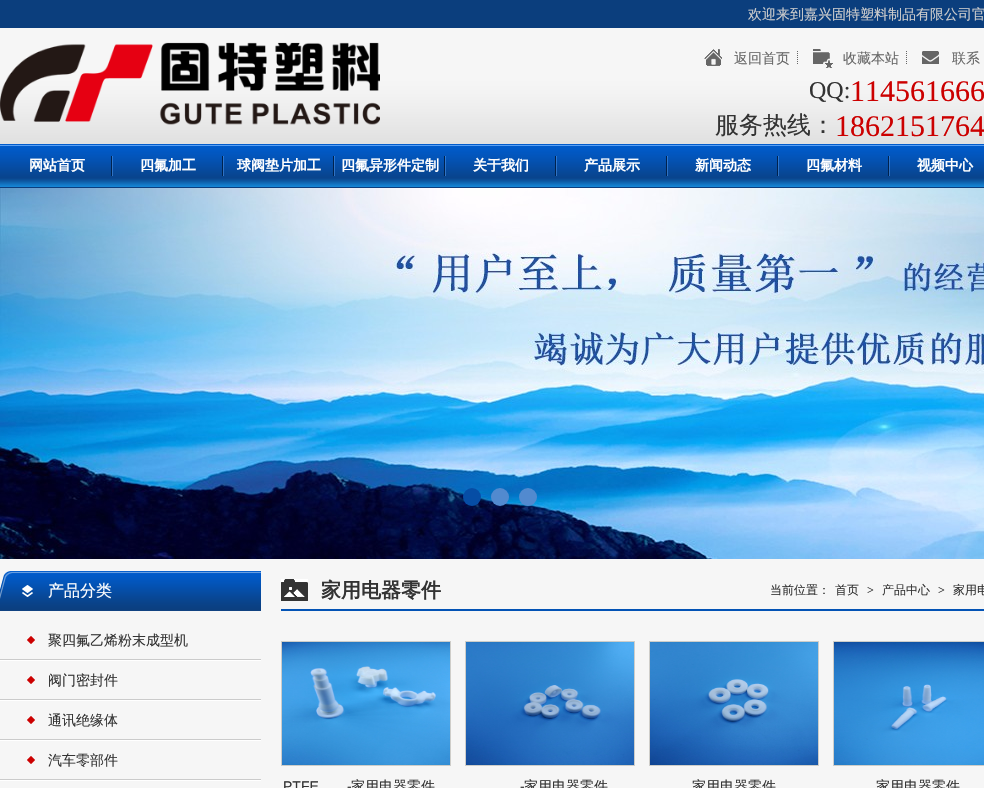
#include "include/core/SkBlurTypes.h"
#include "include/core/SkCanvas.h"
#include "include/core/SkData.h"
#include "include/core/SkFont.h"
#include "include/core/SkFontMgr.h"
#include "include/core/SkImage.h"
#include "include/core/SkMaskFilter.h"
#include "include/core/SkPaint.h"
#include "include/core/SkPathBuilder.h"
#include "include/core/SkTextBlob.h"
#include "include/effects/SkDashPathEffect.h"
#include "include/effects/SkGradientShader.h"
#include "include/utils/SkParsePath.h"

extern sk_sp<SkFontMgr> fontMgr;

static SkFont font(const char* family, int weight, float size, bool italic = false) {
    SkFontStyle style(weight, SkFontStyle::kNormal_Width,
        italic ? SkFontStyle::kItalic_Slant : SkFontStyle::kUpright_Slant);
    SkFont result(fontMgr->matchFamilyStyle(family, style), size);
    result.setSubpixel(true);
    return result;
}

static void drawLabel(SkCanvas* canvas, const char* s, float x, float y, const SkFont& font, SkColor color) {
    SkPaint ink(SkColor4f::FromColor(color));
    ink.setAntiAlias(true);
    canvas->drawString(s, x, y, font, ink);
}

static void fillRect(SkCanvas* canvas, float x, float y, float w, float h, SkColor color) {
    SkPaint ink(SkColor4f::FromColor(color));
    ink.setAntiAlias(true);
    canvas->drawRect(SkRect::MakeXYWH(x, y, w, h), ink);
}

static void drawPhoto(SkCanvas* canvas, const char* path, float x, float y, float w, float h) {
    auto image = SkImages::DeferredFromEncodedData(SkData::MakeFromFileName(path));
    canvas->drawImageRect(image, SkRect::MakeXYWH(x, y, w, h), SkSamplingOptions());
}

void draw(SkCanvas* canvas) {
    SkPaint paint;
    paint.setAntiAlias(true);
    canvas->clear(0xFFF6F6F6);
    drawPhoto(canvas, "assets/img1.png", 0, 0, 984, 144);
    SkFont font1 = font("WenQuanYi Zen Hei", 500, 14);
    drawLabel(canvas, "欢迎来到嘉兴固特塑料制品有限公司官", 748, 19, font1, 0xFFCCCCCC);
    drawPhoto(canvas, "assets/img2.png", 0, 42, 380, 83);
    drawPhoto(canvas, "assets/img3.png", 704, 49, 19, 17);
    drawLabel(canvas, "返回首页", 734, 63, font1, 0xFF666666);
    drawPhoto(canvas, "assets/img4.png", 797, 51, 1, 13);
    drawPhoto(canvas, "assets/img5.png", 813, 49, 21, 19);
    drawLabel(canvas, "收藏本站", 843, 63, font1, 0xFF666666);
    drawPhoto(canvas, "assets/img4.png", 906, 51, 1, 13);
    drawPhoto(canvas, "assets/img6.png", 922, 51, 17, 13);
    drawLabel(canvas, "联系", 952, 63, font1, 0xFF666666);
    SkFont font2 = font("Liberation Serif", 400, 24);
    drawLabel(canvas, "QQ:", 809, 98, font2, 0xFF333333);
    SkFont font3 = font("Liberation Serif", 400, 30);
    drawLabel(canvas, "114561666", 850, 101, font3, 0xFFCC0000);
    SkFont font4 = font("WenQuanYi Zen Hei", 500, 24);
    drawLabel(canvas, "服务热线：", 715, 133, font4, 0xFF333333);
    drawLabel(canvas, "1862151764", 835, 136, font3, 0xFFCC0000);
    drawPhoto(canvas, "assets/img7.png", 0, 144, 984, 44);
    SkFont font5 = font("WenQuanYi Zen Hei", 700, 14);
    drawLabel(canvas, "网站首页", 29, 170, font5, 0xFFFFFFFF);
    drawPhoto(canvas, "assets/img8.png", 111, 156, 2, 20);
    drawLabel(canvas, "四氟加工", 140, 170, font5, 0xFFFFFFFF);
    drawPhoto(canvas, "assets/img8.png", 222, 156, 2, 20);
    drawLabel(canvas, "球阀垫片加工", 237, 170, font5, 0xFFFFFFFF);
    drawPhoto(canvas, "assets/img8.png", 333, 156, 2, 20);
    drawLabel(canvas, "四氟异形件定制", 341, 170, font5, 0xFFFFFFFF);
    drawPhoto(canvas, "assets/img8.png", 444, 156, 2, 20);
    drawLabel(canvas, "关于我们", 473, 170, font5, 0xFFFFFFFF);
    drawPhoto(canvas, "assets/img8.png", 555, 156, 2, 20);
    drawLabel(canvas, "产品展示", 584, 170, font5, 0xFFFFFFFF);
    drawPhoto(canvas, "assets/img8.png", 666, 156, 2, 20);
    drawLabel(canvas, "新闻动态", 695, 170, font5, 0xFFFFFFFF);
    drawPhoto(canvas, "assets/img8.png", 777, 156, 2, 20);
    drawLabel(canvas, "四氟材料", 806, 170, font5, 0xFFFFFFFF);
    drawPhoto(canvas, "assets/img8.png", 888, 156, 2, 20);
    drawLabel(canvas, "视频中心", 917, 170, font5, 0xFFFFFFFF);
    drawPhoto(canvas, "assets/img9.png", 0, 188, 984, 371);
    paint.setColor(0xFF064DA5);
    canvas->drawCircle(472, 497, 9, paint);
    paint.setColor(0xFF528ACF);
    canvas->drawCircle(500, 497, 9, paint);
    canvas->drawCircle(528, 497, 9, paint);
    drawPhoto(canvas, "assets/img10.png", 0, 571, 261, 40);
    SkFont font6 = font("WenQuanYi Zen Hei", 500, 16);
    drawLabel(canvas, "产品分类", 48, 596, font6, 0xFFFFFFFF);
    drawPhoto(canvas, "assets/img11.png", 0, 659, 261, 2);
    drawPhoto(canvas, "assets/img12.png", 27, 636, 8, 8);
    drawLabel(canvas, "聚四氟乙烯粉末成型机", 48, 645, font1, 0xFF333333);
    drawPhoto(canvas, "assets/img11.png", 0, 699, 261, 2);
    drawPhoto(canvas, "assets/img12.png", 27, 676, 8, 8);
    drawLabel(canvas, "阀门密封件", 48, 685, font1, 0xFF333333);
    drawPhoto(canvas, "assets/img11.png", 0, 739, 261, 2);
    drawPhoto(canvas, "assets/img12.png", 27, 716, 8, 8);
    drawLabel(canvas, "通讯绝缘体", 48, 725, font1, 0xFF333333);
    drawPhoto(canvas, "assets/img11.png", 0, 779, 261, 2);
    drawPhoto(canvas, "assets/img12.png", 27, 756, 8, 8);
    drawLabel(canvas, "汽车零部件", 48, 765, font1, 0xFF333333);
    drawPhoto(canvas, "assets/img13.png", 281, 579, 27, 22);
    fillRect(canvas, 281, 609, 703, 2, 0xFF0353B5);
    SkFont font7 = font("WenQuanYi Zen Hei", 700, 20);
    drawLabel(canvas, "家用电器零件", 321, 597, font7, 0xFF333333);
    SkFont font8 = font("WenQuanYi Zen Hei", 500, 12);
    drawLabel(canvas, "当前位置：", 770, 594, font8, 0xFF333333);
    drawLabel(canvas, "首页", 835, 594, font8, 0xFF333333);
    SkFont font9 = font("Liberation Serif", 400, 12);
    drawLabel(canvas, ">", 867, 594, font9, 0xFF333333);
    drawLabel(canvas, "产品中心", 882, 594, font8, 0xFF333333);
    drawLabel(canvas, ">", 938, 594, font9, 0xFF333333);
    drawLabel(canvas, "家用电", 953, 594, font8, 0xFF333333);
    paint.setStroke(true);
    paint.setStrokeWidth(1);
    paint.setColor(0xFFCECDC9);
    canvas->drawRect(SkRect::MakeXYWH(281.5f, 641.5f, 169, 124), paint);
    drawPhoto(canvas, "assets/img14.png", 282, 642, 168, 123);
    SkFont font10 = font("Liberation Sans", 400, 14);
    drawLabel(canvas, "PTFE", 283, 791, font10, 0xFF333333);
    drawLabel(canvas, "-", 347, 791, font10, 0xFF333333);
    drawLabel(canvas, "家用电器零件", 351, 791, font1, 0xFF333333);
    canvas->drawRect(SkRect::MakeXYWH(465.5f, 641.5f, 169, 124), paint);
    drawPhoto(canvas, "assets/img15.png", 466, 642, 168, 123);
    drawLabel(canvas, "-", 520, 791, font10, 0xFF333333);
    drawLabel(canvas, "家用电器零件", 524, 791, font1, 0xFF333333);
    canvas->drawRect(SkRect::MakeXYWH(649.5f, 641.5f, 169, 124), paint);
    drawPhoto(canvas, "assets/img16.png", 650, 642, 168, 123);
    drawLabel(canvas, "家用电器零件", 692, 791, font1, 0xFF333333);
    canvas->drawRect(SkRect::MakeXYWH(833.5f, 641.5f, 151, 124), paint);
    drawPhoto(canvas, "assets/img17.png", 834, 642, 150, 123);
    drawLabel(canvas, "家用电器零件", 876, 791, font1, 0xFF333333);
}
